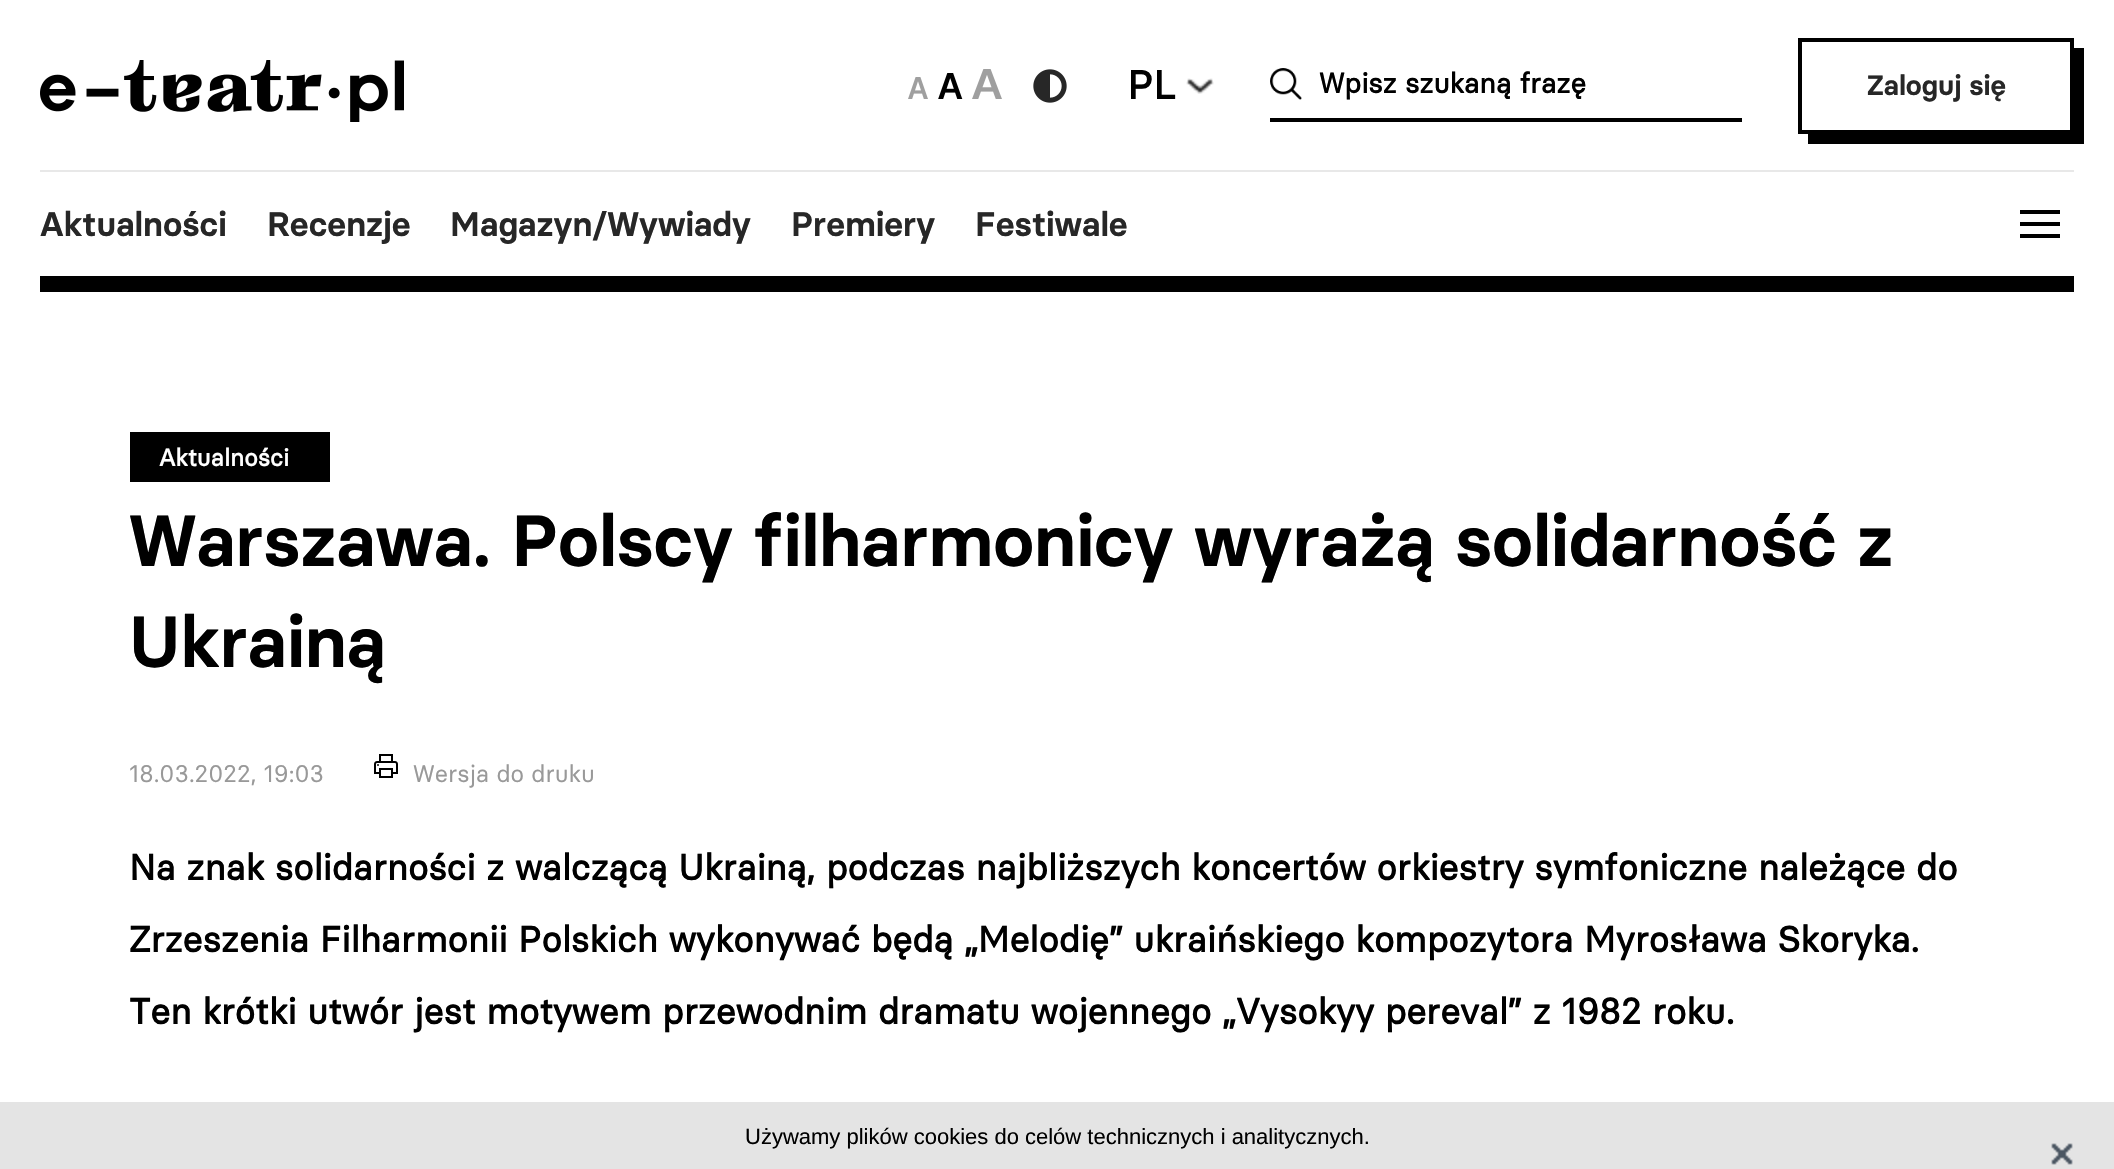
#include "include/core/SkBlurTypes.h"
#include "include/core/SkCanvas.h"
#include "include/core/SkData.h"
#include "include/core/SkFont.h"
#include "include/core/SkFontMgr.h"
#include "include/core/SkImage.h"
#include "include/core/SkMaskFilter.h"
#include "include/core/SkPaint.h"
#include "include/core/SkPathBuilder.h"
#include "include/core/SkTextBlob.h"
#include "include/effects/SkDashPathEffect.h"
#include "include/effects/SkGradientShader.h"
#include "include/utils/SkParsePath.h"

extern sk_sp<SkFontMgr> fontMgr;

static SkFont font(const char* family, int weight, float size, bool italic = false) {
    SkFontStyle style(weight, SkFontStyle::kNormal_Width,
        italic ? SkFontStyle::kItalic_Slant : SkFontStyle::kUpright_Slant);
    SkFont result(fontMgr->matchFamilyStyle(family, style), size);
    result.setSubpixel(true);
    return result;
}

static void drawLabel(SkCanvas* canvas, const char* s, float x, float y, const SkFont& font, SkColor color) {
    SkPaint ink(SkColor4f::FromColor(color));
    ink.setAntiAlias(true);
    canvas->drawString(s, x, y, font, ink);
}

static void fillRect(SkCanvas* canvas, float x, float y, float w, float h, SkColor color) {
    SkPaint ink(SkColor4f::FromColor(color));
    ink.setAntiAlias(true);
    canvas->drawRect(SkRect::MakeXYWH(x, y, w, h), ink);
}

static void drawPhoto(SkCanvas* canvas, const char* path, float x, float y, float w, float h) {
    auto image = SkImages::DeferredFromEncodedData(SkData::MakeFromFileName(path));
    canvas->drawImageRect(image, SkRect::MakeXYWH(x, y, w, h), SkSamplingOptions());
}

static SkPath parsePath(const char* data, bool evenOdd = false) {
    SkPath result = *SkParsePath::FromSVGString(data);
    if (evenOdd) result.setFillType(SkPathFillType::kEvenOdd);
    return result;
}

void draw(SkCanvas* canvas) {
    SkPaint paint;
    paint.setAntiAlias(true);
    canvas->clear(0xFFFFFFFF);
    fillRect(canvas, 40, 276, 2034, 16, 0xFF000000);
    drawPhoto(canvas, "assets/img1.png", 40, 60, 364, 62);
    drawPhoto(canvas, "assets/img2.png", 908, 77, 20, 22);
    drawPhoto(canvas, "assets/img3.png", 938, 73, 25, 26);
    drawPhoto(canvas, "assets/img4.png", 972, 69, 30, 30);
    drawPhoto(canvas, "assets/img5.png", 1033, 69, 34, 34);
    SkFont font1 = font("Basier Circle", 700, 40);
    drawLabel(canvas, "PL", 1127, 99, font1, 0xFF000000);
    drawPhoto(canvas, "assets/img6.png", 1186, 78, 28, 16);
    drawPhoto(canvas, "assets/img7.png", 1270, 68, 32, 32);
    fillRect(canvas, 1270, 118, 472, 4, 0xFF000000);
    SkFont font2 = font("Basier Circle", 700, 28);
    drawLabel(canvas, "Wpisz szukaną frazę", 1319, 93, font2, 0xFF000000);
    paint.setColor(0xFF000000);
    canvas->drawPath(parsePath("M1808 134V144H2084V48H2074V134Z"), paint);
    paint.setStroke(true);
    paint.setStrokeWidth(4);
    canvas->drawRect(SkRect::MakeXYWH(1800, 40, 272, 92), paint);
    SkFont font3 = font("Basier Circle", 600, 28);
    drawLabel(canvas, "Zaloguj się", 1867, 95, font3, 0xFF272727);
    fillRect(canvas, 40, 170, 2034, 2, 0xFFE8E8E8);
    SkFont font4 = font("Basier Circle", 600, 34);
    drawLabel(canvas, "Aktualności", 40, 236, font4, 0xFF272727);
    drawLabel(canvas, "Recenzje", 267, 236, font4, 0xFF272727);
    drawLabel(canvas, "Magazyn/Wywiady", 450, 236, font4, 0xFF272727);
    drawLabel(canvas, "Premiery", 791, 236, font4, 0xFF272727);
    drawLabel(canvas, "Festiwale", 975, 236, font4, 0xFF272727);
    fillRect(canvas, 2020, 210, 40, 4, 0xFF000000);
    fillRect(canvas, 2020, 222, 40, 4, 0xFF000000);
    fillRect(canvas, 2020, 234, 40, 4, 0xFF000000);
    fillRect(canvas, 130, 432, 200, 50, 0xFF000000);
    SkFont font5 = font("Basier Circle", 700, 24);
    drawLabel(canvas, "Aktualności", 159, 466, font5, 0xFFFFFFFF);
    SkFont font6 = font("Basier Circle", 600, 72);
    drawLabel(canvas, "Warszawa. Polscy filharmonicy wyrażą solidarność z", 129, 566, font6, 0xFF000000);
    drawLabel(canvas, "Ukrainą", 129, 667, font6, 0xFF000000);
    SkFont font7 = font("Basier Circle", 400, 24);
    drawLabel(canvas, "18.03.2022, 19:03", 129, 782, font7, 0xFF999999);
    drawPhoto(canvas, "assets/img8.png", 374, 754, 24, 24);
    drawLabel(canvas, "Wersja do druku", 413, 782, font7, 0xFF999999);
    SkFont font8 = font("Basier Circle", 700, 36);
    drawLabel(canvas, "Na znak solidarności z walczącą Ukrainą, podczas najbliższych koncertów orkiestry symfoniczne należące do", 129, 880, font8, 0xFF000000);
    drawLabel(canvas, "Zrzeszenia Filharmonii Polskich wykonywać będą „Melodię” ukraińskiego kompozytora Myrosława Skoryka.", 129, 952, font8, 0xFF000000);
    drawLabel(canvas, "Ten krótki utwór jest motywem przewodnim dramatu wojennego „Vysokyy pereval” z 1982 roku.", 129, 1024, font8, 0xFF000000);
    fillRect(canvas, 0, 1102, 2114, 67, 0xFFE4E4E4);
    SkFont font9 = font("Liberation Sans", 400, 22);
    drawLabel(canvas, "Używamy plików cookies do celów technicznych i analitycznych.", 745, 1144, font9, 0xFF000000);
    drawPhoto(canvas, "assets/img9.png", 2051, 1143, 22, 22);
}
